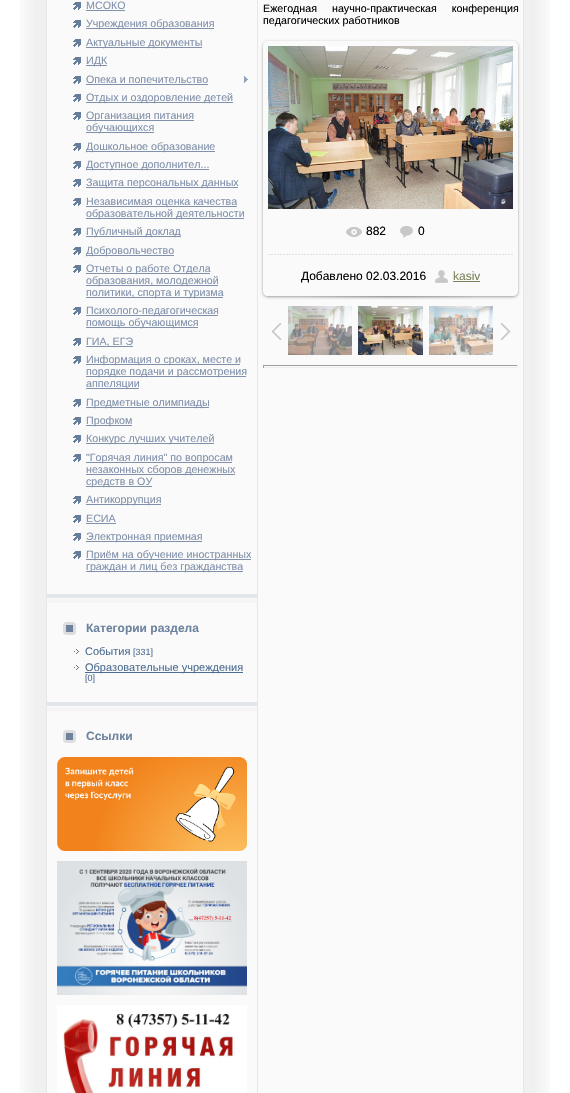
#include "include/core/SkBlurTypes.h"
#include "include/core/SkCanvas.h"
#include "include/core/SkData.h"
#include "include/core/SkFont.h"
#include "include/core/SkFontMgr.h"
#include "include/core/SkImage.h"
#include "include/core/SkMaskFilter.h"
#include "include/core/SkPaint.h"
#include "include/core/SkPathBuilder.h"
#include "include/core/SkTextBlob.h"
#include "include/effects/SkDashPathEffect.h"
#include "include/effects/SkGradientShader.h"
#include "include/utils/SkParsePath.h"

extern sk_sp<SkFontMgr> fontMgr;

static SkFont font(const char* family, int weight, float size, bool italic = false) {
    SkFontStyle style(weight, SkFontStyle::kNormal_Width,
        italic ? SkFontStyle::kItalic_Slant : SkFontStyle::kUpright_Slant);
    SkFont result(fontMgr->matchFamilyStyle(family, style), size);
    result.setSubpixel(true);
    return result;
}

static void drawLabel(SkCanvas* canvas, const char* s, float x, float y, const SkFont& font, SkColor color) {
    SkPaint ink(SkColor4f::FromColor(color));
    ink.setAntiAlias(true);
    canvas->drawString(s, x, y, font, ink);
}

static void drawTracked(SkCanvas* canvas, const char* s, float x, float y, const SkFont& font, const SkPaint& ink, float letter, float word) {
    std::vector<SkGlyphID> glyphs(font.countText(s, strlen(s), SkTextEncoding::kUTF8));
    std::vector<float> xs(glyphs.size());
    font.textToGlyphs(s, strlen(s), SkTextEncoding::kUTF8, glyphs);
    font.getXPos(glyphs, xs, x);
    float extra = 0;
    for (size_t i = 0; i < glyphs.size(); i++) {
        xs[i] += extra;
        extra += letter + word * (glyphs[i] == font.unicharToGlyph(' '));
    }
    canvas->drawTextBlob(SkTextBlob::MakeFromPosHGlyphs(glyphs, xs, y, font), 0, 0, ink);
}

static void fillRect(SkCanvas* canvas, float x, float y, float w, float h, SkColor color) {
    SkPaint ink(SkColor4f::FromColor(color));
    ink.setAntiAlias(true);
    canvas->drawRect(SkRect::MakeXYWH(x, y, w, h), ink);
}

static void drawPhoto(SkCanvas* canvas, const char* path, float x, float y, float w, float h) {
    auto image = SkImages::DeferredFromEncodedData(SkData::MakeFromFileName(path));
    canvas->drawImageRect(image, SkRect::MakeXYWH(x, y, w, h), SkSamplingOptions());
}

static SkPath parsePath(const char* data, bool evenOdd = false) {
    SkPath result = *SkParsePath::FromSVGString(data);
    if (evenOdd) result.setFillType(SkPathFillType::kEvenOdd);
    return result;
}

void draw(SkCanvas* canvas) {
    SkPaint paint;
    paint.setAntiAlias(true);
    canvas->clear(0xFFFFFFFF);
    drawPhoto(canvas, "assets/img1.png", 20, 0, 26, 1093);
    fillRect(canvas, 47, 0, 476, 1093, 0xFFFAFAFA);
    fillRect(canvas, 523, 0, 1, 1093, 0xFFE5E7EA);
    fillRect(canvas, 46, 0, 1, 1093, 0xFFE5E7EA);
    fillRect(canvas, 257, 0, 1, 1093, 0xFFE5E7EA);
    drawPhoto(canvas, "assets/img2.png", 73, 2, 8, 8);
    SkFont font1 = font("Liberation Sans", 400, 10.7f);
    drawLabel(canvas, "МСОКО", 86, 9, font1, 0xFF8191AB);
    fillRect(canvas, 86, 10, 39, 1, 0xFF8191AB);
    drawPhoto(canvas, "assets/img2.png", 73, 20, 8, 8);
    fillRect(canvas, 86, 28, 128, 1, 0xFF8191AB);
    drawLabel(canvas, "Учреждения образования", 86, 27, font1, 0xFF8191AB);
    drawPhoto(canvas, "assets/img2.png", 73, 39, 8, 8);
    fillRect(canvas, 86, 47, 116, 1, 0xFF8191AB);
    drawLabel(canvas, "Актуальные документы", 86, 46, font1, 0xFF8191AB);
    drawPhoto(canvas, "assets/img2.png", 73, 57, 8, 8);
    fillRect(canvas, 86, 65, 21, 1, 0xFF8191AB);
    drawLabel(canvas, "ИДК", 86, 64, font1, 0xFF8191AB);
    drawPhoto(canvas, "assets/img2.png", 73, 76, 8, 8);
    drawLabel(canvas, "Опека и попечительство", 86, 83, font1, 0xFF8191AB);
    fillRect(canvas, 86, 84, 122, 1, 0xFF8191AB);
    drawPhoto(canvas, "assets/img3.png", 244, 76, 4, 7);
    drawPhoto(canvas, "assets/img2.png", 73, 94, 8, 8);
    fillRect(canvas, 86, 102, 147, 1, 0xFF8191AB);
    drawLabel(canvas, "Отдых и оздоровление детей", 86, 101, font1, 0xFF8191AB);
    drawPhoto(canvas, "assets/img2.png", 73, 112, 8, 8);
    fillRect(canvas, 86, 120, 108, 1, 0xFF8191AB);
    drawLabel(canvas, "Организация питания", 86, 119, font1, 0xFF8191AB);
    fillRect(canvas, 86, 132, 68, 1, 0xFF8191AB);
    drawLabel(canvas, "обучающихся", 86, 131, font1, 0xFF8191AB);
    drawPhoto(canvas, "assets/img2.png", 73, 143, 8, 8);
    fillRect(canvas, 86, 151, 129, 1, 0xFF8191AB);
    drawLabel(canvas, "Дошкольное образование", 86, 150, font1, 0xFF8191AB);
    drawPhoto(canvas, "assets/img2.png", 73, 161, 8, 8);
    fillRect(canvas, 86, 169, 123, 1, 0xFF8191AB);
    drawLabel(canvas, "Доступное дополнител...", 86, 168, font1, 0xFF8191AB);
    drawPhoto(canvas, "assets/img2.png", 73, 179, 8, 8);
    fillRect(canvas, 86, 187, 152, 1, 0xFF8191AB);
    drawLabel(canvas, "Защита персональных данных", 86, 186, font1, 0xFF8191AB);
    drawPhoto(canvas, "assets/img2.png", 73, 198, 8, 8);
    fillRect(canvas, 86, 206, 151, 1, 0xFF8191AB);
    drawLabel(canvas, "Независимая оценка качества", 86, 205, font1, 0xFF8191AB);
    fillRect(canvas, 86, 218, 158, 1, 0xFF8191AB);
    drawLabel(canvas, "образовательной деятельности", 86, 217, font1, 0xFF8191AB);
    drawPhoto(canvas, "assets/img2.png", 73, 228, 8, 8);
    fillRect(canvas, 86, 236, 94, 1, 0xFF8191AB);
    drawLabel(canvas, "Публичный доклад", 86, 235, font1, 0xFF8191AB);
    drawPhoto(canvas, "assets/img2.png", 73, 247, 8, 8);
    fillRect(canvas, 86, 255, 88, 1, 0xFF8191AB);
    drawLabel(canvas, "Добровольчество", 86, 254, font1, 0xFF8191AB);
    drawPhoto(canvas, "assets/img2.png", 73, 265, 8, 8);
    fillRect(canvas, 86, 273, 124, 1, 0xFF8191AB);
    drawLabel(canvas, "Отчеты о работе Отдела", 86, 272, font1, 0xFF8191AB);
    fillRect(canvas, 86, 285, 132, 1, 0xFF8191AB);
    drawLabel(canvas, "образования, молодежной", 86, 284, font1, 0xFF8191AB);
    fillRect(canvas, 86, 297, 137, 1, 0xFF8191AB);
    drawLabel(canvas, "политики, спорта и туризма", 86, 296, font1, 0xFF8191AB);
    drawPhoto(canvas, "assets/img2.png", 73, 307, 8, 8);
    fillRect(canvas, 86, 315, 132, 1, 0xFF8191AB);
    drawLabel(canvas, "Психолого-педагогическая", 86, 314, font1, 0xFF8191AB);
    fillRect(canvas, 86, 327, 112, 1, 0xFF8191AB);
    drawLabel(canvas, "помощь обучающимся", 86, 326, font1, 0xFF8191AB);
    drawPhoto(canvas, "assets/img2.png", 73, 338, 8, 8);
    fillRect(canvas, 86, 346, 47, 1, 0xFF8191AB);
    drawLabel(canvas, "ГИА, ЕГЭ", 86, 345, font1, 0xFF8191AB);
    drawPhoto(canvas, "assets/img2.png", 73, 356, 8, 8);
    fillRect(canvas, 86, 364, 154, 1, 0xFF8191AB);
    drawLabel(canvas, "Информация о сроках, месте и", 86, 363, font1, 0xFF8191AB);
    fillRect(canvas, 86, 376, 160, 1, 0xFF8191AB);
    drawLabel(canvas, "порядке подачи и рассмотрения", 86, 375, font1, 0xFF8191AB);
    fillRect(canvas, 86, 388, 53, 1, 0xFF8191AB);
    drawLabel(canvas, "аппеляции", 86, 387, font1, 0xFF8191AB);
    drawPhoto(canvas, "assets/img2.png", 73, 399, 8, 8);
    fillRect(canvas, 86, 407, 123, 1, 0xFF8191AB);
    drawLabel(canvas, "Предметные олимпиады", 86, 406, font1, 0xFF8191AB);
    drawPhoto(canvas, "assets/img2.png", 73, 417, 8, 8);
    fillRect(canvas, 86, 425, 46, 1, 0xFF8191AB);
    drawLabel(canvas, "Профком", 86, 424, font1, 0xFF8191AB);
    drawPhoto(canvas, "assets/img2.png", 73, 435, 8, 8);
    fillRect(canvas, 86, 443, 128, 1, 0xFF8191AB);
    drawLabel(canvas, "Конкурс лучших учителей", 86, 442, font1, 0xFF8191AB);
    drawPhoto(canvas, "assets/img2.png", 73, 454, 8, 8);
    fillRect(canvas, 86, 462, 146, 1, 0xFF8191AB);
    drawLabel(canvas, "\"Горячая линия\" по вопросам", 86, 461, font1, 0xFF8191AB);
    fillRect(canvas, 86, 474, 149, 1, 0xFF8191AB);
    drawLabel(canvas, "незаконных сборов денежных", 86, 473, font1, 0xFF8191AB);
    fillRect(canvas, 86, 486, 66, 1, 0xFF8191AB);
    drawLabel(canvas, "средств в ОУ", 86, 485, font1, 0xFF8191AB);
    drawPhoto(canvas, "assets/img2.png", 73, 496, 8, 8);
    fillRect(canvas, 86, 504, 75, 1, 0xFF8191AB);
    drawLabel(canvas, "Антикоррупция", 86, 503, font1, 0xFF8191AB);
    drawPhoto(canvas, "assets/img2.png", 73, 515, 8, 8);
    drawLabel(canvas, "ЕСИА", 86, 522, font1, 0xFF8191AB);
    fillRect(canvas, 86, 523, 30, 1, 0xFF8191AB);
    drawPhoto(canvas, "assets/img2.png", 73, 533, 8, 8);
    fillRect(canvas, 86, 541, 116, 1, 0xFF8191AB);
    drawLabel(canvas, "Электронная приемная", 86, 540, font1, 0xFF8191AB);
    drawPhoto(canvas, "assets/img2.png", 73, 551, 8, 8);
    fillRect(canvas, 86, 559, 165, 1, 0xFF8191AB);
    drawLabel(canvas, "Приём на обучение иностранных", 86, 558, font1, 0xFF8191AB);
    fillRect(canvas, 86, 571, 157, 1, 0xFF8191AB);
    drawLabel(canvas, "граждан и лиц без гражданства", 86, 570, font1, 0xFF8191AB);
    fillRect(canvas, 47, 594, 210, 4, 0xFFE2E6EA);
    fillRect(canvas, 47, 599, 210, 4, 0xFFF5F5F5);
    drawPhoto(canvas, "assets/img4.png", 63, 622, 13, 13);
    SkFont font2 = font("Liberation Sans", 700, 12);
    drawLabel(canvas, "Категории раздела", 86, 632, font2, 0xFF6C829D);
    drawPhoto(canvas, "assets/img5.png", 74, 649, 5, 5);
    SkFont font3 = font("Liberation Sans", 400, 11);
    drawLabel(canvas, "События", 85, 655, font3, 0xFF4D6D91);
    SkFont font4 = font("Liberation Sans", 400, 9);
    drawLabel(canvas, "[331]", 133, 655, font4, 0xFF4D6D91);
    drawPhoto(canvas, "assets/img5.png", 74, 665, 5, 5);
    fillRect(canvas, 85, 672, 158, 1, 0xFF4D6D91);
    drawLabel(canvas, "Образовательные учреждения", 85, 671, font3, 0xFF4D6D91);
    drawLabel(canvas, "[0]", 85, 681, font4, 0xFF4D6D91);
    fillRect(canvas, 47, 702, 210, 4, 0xFFE2E6EA);
    fillRect(canvas, 47, 707, 210, 4, 0xFFF5F5F5);
    drawPhoto(canvas, "assets/img4.png", 63, 730, 13, 13);
    drawLabel(canvas, "Ссылки", 86, 740, font2, 0xFF6C829D);
    drawPhoto(canvas, "assets/img6.png", 57, 757, 190, 94);
    drawPhoto(canvas, "assets/img7.png", 57, 861, 190, 134);
    drawPhoto(canvas, "assets/img8.png", 57, 1005, 190, 88);
    paint.setColor(0xFF000000);
    drawTracked(canvas, "Ежегодная научно-практическая конференция", 263, 12, font1, paint, 0, 12);
    drawLabel(canvas, "педагогических работников", 263, 24, font1, 0xFF000000);
    canvas->save();
    canvas->clipPath(parsePath("M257 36H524V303H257ZM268 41H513C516 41 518 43 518 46V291C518 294 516 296 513 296H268C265 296 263 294 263 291V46C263 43 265 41 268 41Z", true), true);
    paint.setColor(0x5E000000);
    paint.setMaskFilter(SkMaskFilter::MakeBlur(kNormal_SkBlurStyle, 1.5f));
    canvas->drawRoundRect(SkRect::MakeXYWH(263, 42, 255, 255), 5, 5, paint);
    paint.setMaskFilter(nullptr);
    canvas->restore();
    drawPhoto(canvas, "assets/img9.png", 268, 46, 245, 163);
    drawPhoto(canvas, "assets/img10.png", 346, 227, 16, 10);
    SkFont font5 = font("Liberation Sans", 400, 12);
    drawLabel(canvas, "882", 366, 235, font5, 0xFF000000);
    drawPhoto(canvas, "assets/img11.png", 400, 226, 13, 12);
    drawLabel(canvas, "0", 418, 235, font5, 0xFF000000);
    drawPhoto(canvas, "assets/img12.png", 268, 254, 245, 1);
    drawLabel(canvas, "Добавлено 02.03.2016", 301, 280, font5, 0xFF000000);
    drawPhoto(canvas, "assets/img13.png", 435, 270, 13, 13);
    drawLabel(canvas, "kasiv", 453, 280, font5, 0xFF79835A);
    fillRect(canvas, 453, 281, 27, 1, 0xFF79835A);
    drawPhoto(canvas, "assets/img14.png", 311, 296, 161, 3);
    drawPhoto(canvas, "assets/img15.png", 271, 323, 11, 17);
    drawPhoto(canvas, "assets/img16.png", 288, 306, 64, 49);
    drawPhoto(canvas, "assets/img17.png", 358, 306, 65, 49);
    drawPhoto(canvas, "assets/img18.png", 429, 306, 64, 49);
    drawPhoto(canvas, "assets/img19.png", 500, 323, 11, 17);
    fillRect(canvas, 263, 365, 255, 1, 0xFF9F9F9F);
    fillRect(canvas, 517, 365, 1, 3, 0xFFEEEEEE);
    fillRect(canvas, 263, 367, 255, 1, 0xFFEEEEEE);
    fillRect(canvas, 263, 365, 1, 3, 0xFF9F9F9F);
    drawPhoto(canvas, "assets/img20.png", 524, 0, 26, 1093);
}
